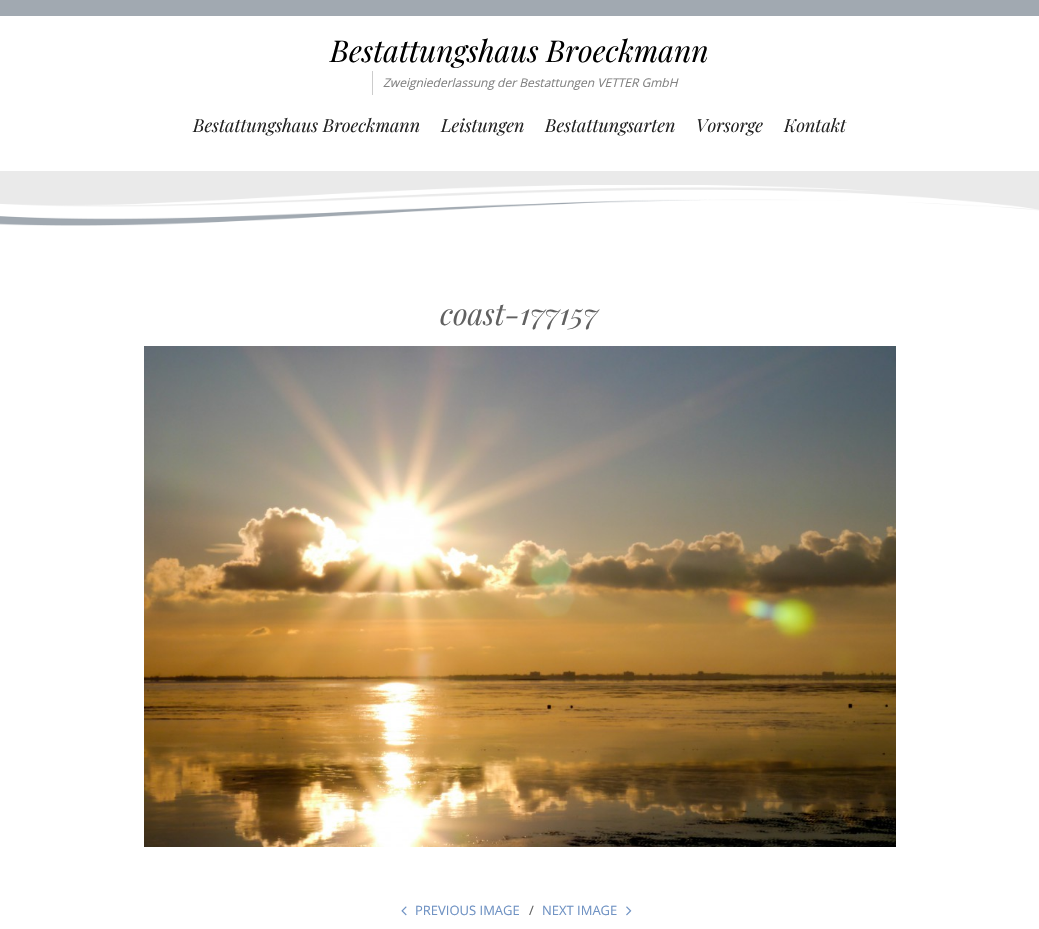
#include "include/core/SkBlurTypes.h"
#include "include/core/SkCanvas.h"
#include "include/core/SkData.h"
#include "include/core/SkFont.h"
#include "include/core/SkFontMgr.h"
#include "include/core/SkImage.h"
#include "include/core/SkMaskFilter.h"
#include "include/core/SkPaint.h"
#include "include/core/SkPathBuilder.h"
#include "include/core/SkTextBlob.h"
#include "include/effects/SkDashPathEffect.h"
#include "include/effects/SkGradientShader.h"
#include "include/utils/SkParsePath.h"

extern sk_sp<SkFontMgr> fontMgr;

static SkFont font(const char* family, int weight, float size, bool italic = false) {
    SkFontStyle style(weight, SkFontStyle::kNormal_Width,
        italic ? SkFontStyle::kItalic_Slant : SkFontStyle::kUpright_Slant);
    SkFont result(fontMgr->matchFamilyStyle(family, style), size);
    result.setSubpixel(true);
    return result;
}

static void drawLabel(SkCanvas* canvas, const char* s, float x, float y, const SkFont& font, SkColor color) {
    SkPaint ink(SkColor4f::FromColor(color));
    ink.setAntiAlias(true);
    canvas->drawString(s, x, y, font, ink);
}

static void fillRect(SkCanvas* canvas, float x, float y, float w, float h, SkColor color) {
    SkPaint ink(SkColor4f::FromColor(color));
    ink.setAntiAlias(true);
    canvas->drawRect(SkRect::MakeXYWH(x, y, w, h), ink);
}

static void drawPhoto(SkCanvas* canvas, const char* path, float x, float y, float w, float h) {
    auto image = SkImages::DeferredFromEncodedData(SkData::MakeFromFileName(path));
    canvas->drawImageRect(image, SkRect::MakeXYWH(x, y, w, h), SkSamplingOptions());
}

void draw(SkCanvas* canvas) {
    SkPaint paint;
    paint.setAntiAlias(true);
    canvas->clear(0xFFA1A9B1);
    fillRect(canvas, 0, 16, 1039, 155, 0xFFFFFFFF);
    SkFont font1 = font("Playfair Display", 400, 30, true);
    drawLabel(canvas, "Bestattungshaus Broeckmann", 330, 62, font1, 0xFF000000);
    fillRect(canvas, 372, 71, 1, 24, 0xFFCCCCCC);
    SkFont font2 = font("Open Sans", 400, 12, true);
    drawLabel(canvas, "Zweigniederlassung der Bestattungen VETTER GmbH", 383, 87, font2, 0xFF828282);
    SkFont font3 = font("Playfair Display", 400, 18, true);
    drawLabel(canvas, "Bestattungshaus Broeckmann", 193, 132, font3, 0xFF222222);
    drawLabel(canvas, "Leistungen", 441, 132, font3, 0xFF222222);
    drawLabel(canvas, "Bestattungsarten", 545, 132, font3, 0xFF222222);
    drawLabel(canvas, "Vorsorge", 696, 132, font3, 0xFF222222);
    drawLabel(canvas, "Kontakt", 784, 132, font3, 0xFF222222);
    fillRect(canvas, 0, 171, 1039, 40, 0xFFEAEAEA);
    fillRect(canvas, 0, 225, 1039, 704, 0xFFFFFFFF);
    drawPhoto(canvas, "assets/img1.png", 0, 185, 1039, 41);
    drawLabel(canvas, "coast-177157", 440, 325, font1, 0xFF616161);
    drawPhoto(canvas, "assets/img2.png", 144, 346, 752, 501);
    drawPhoto(canvas, "assets/img3.png", 401, 906, 6, 10);
    SkFont font4 = font("Open Sans", 400, 13);
    drawLabel(canvas, "PREVIOUS IMAGE", 415, 915, font4, 0xFF6F92C3);
    drawLabel(canvas, "∕", 529, 915, font4, 0xFF616161);
    drawLabel(canvas, "NEXT IMAGE", 542, 915, font4, 0xFF6F92C3);
    drawPhoto(canvas, "assets/img4.png", 626, 906, 6, 10);
}
